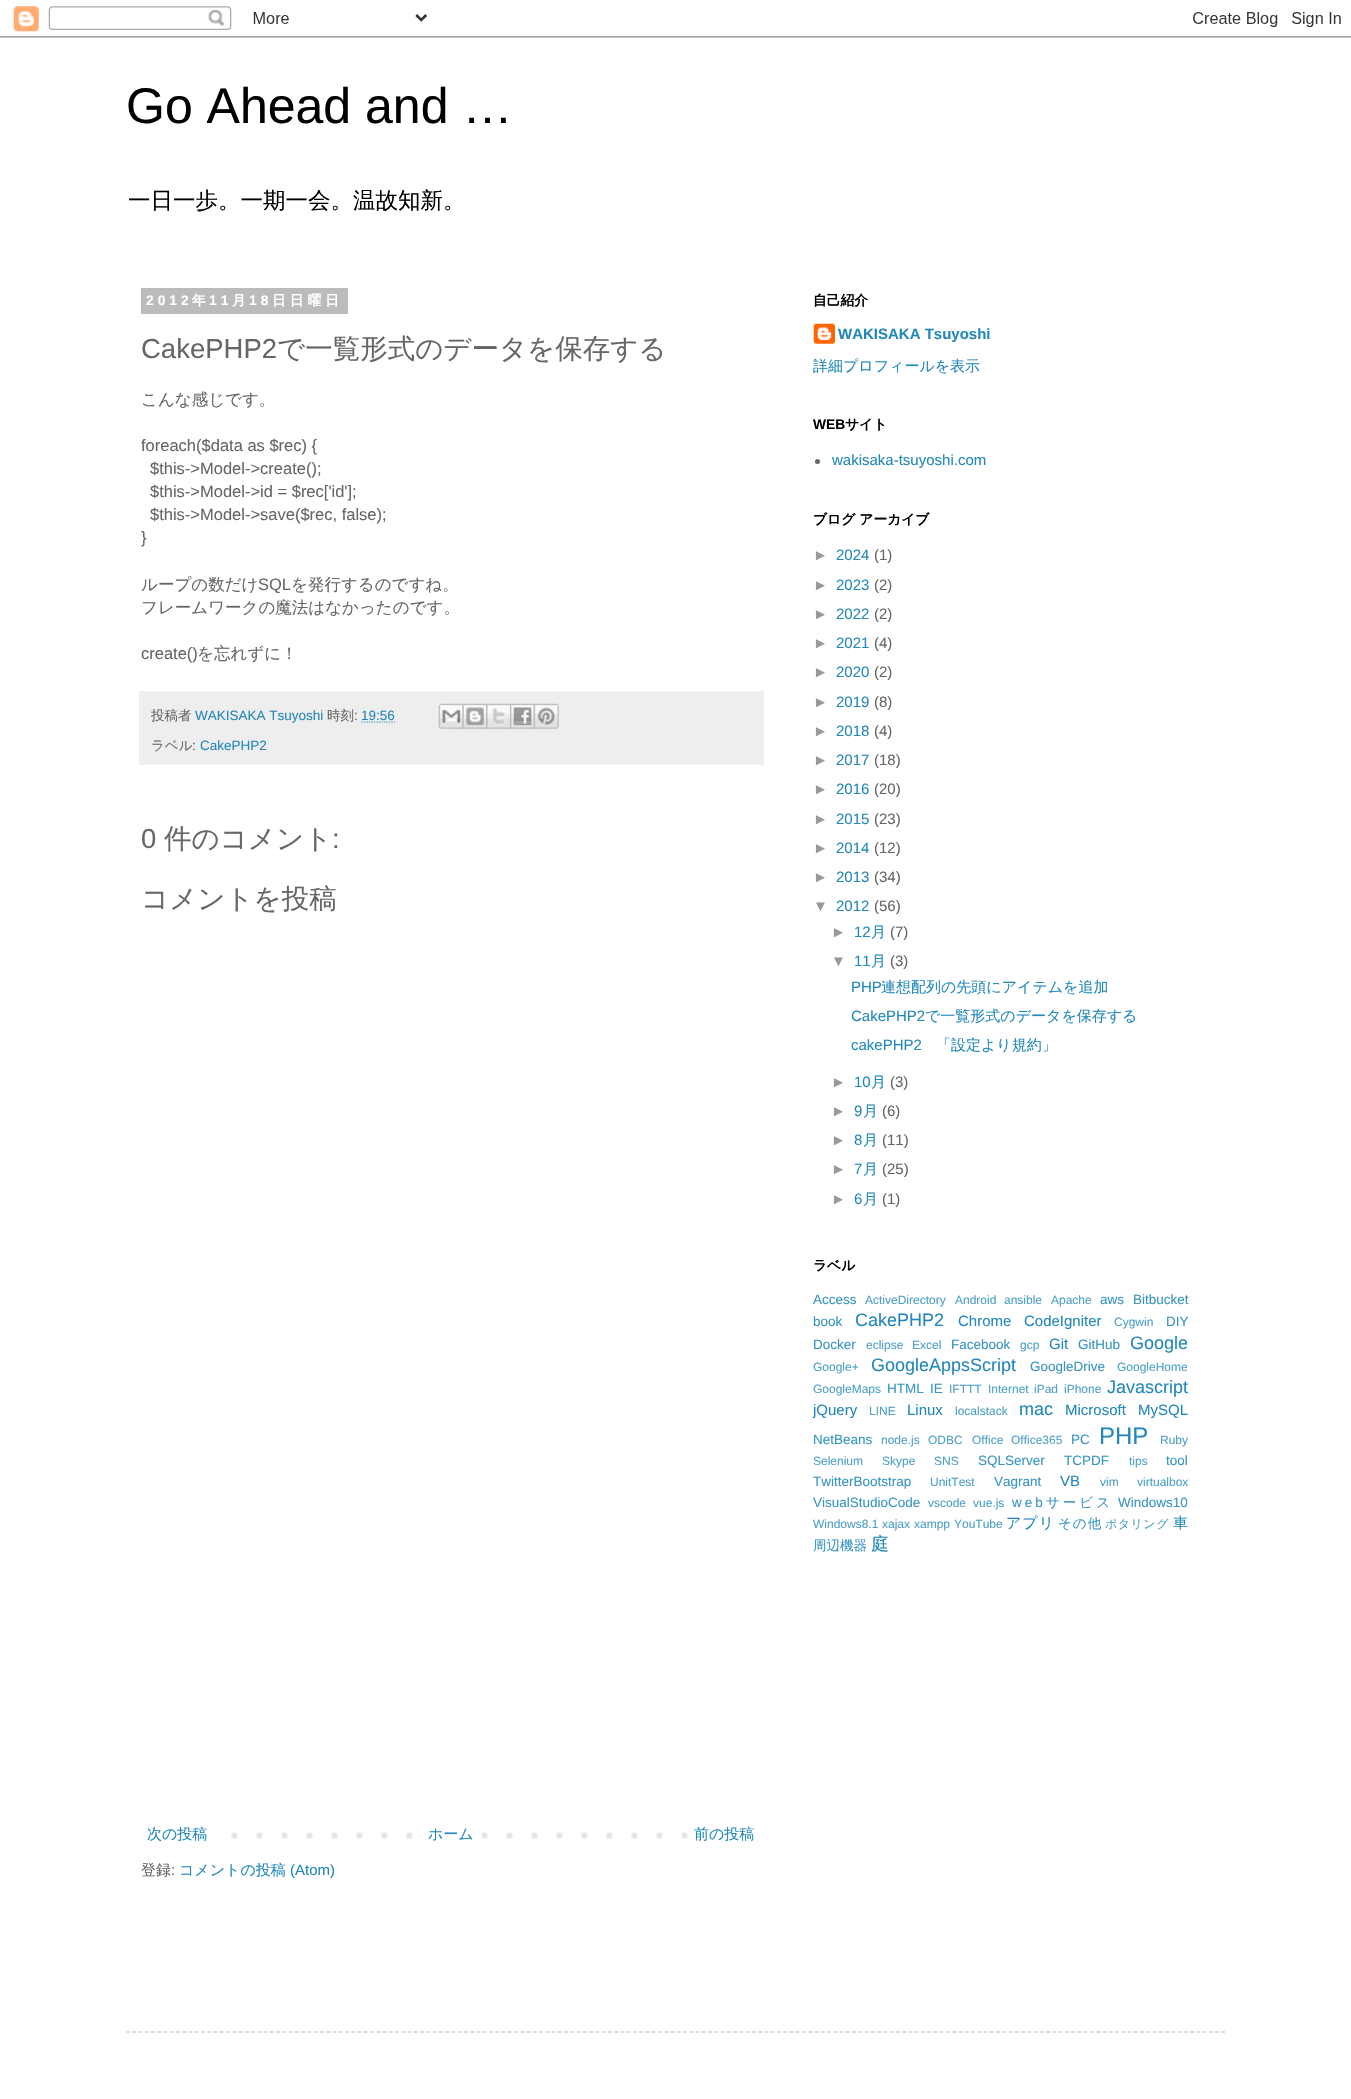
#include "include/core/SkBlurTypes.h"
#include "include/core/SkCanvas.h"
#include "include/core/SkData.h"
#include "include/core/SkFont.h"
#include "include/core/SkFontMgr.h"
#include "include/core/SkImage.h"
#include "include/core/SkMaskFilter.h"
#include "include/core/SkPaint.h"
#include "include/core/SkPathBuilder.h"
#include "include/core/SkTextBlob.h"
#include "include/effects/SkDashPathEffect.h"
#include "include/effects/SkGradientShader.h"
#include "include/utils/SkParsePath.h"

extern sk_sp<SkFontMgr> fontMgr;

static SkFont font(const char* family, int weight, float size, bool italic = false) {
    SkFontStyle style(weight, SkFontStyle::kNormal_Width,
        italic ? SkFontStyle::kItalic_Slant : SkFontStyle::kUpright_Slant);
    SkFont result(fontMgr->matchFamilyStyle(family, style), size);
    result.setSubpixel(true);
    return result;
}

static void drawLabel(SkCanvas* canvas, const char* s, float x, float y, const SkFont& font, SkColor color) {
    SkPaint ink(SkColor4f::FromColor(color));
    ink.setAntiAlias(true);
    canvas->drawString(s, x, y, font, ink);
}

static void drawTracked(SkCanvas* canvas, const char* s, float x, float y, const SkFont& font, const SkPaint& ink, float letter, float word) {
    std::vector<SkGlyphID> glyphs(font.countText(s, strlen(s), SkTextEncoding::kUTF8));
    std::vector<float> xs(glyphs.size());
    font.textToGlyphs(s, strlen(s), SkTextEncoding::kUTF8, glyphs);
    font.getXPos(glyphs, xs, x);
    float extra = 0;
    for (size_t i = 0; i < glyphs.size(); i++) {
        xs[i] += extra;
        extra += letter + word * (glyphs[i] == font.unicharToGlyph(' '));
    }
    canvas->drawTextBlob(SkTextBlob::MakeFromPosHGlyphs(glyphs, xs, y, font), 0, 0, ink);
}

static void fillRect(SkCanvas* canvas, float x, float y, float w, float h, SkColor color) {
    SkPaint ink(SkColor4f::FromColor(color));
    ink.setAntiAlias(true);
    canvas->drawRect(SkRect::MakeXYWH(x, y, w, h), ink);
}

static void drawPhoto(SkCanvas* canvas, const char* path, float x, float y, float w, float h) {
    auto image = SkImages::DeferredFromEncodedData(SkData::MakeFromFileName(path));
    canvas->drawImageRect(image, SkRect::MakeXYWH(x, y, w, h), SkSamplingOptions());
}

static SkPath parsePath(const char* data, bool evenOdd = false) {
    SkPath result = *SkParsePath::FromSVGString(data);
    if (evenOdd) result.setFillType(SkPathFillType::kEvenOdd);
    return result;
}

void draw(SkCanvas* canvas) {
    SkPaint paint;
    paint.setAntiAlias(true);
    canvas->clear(0xFFFFFFFF);
    drawPhoto(canvas, "assets/img1.png", 0, 6, 1351, 32);
    SkFont font1 = font("Liberation Sans", 400, 50);
    drawLabel(canvas, "Go Ahead and …", 126, 123, font1, 0xFF000000);
    SkFont font2 = font("WenQuanYi Zen Hei", 500, 22.5f);
    drawLabel(canvas, "一日一歩。一期一会。温故知新。", 128, 208, font2, 0xFF000000);
    fillRect(canvas, 141, 288, 207, 26, 0xFFBBBBBB);
    SkFont font3 = font("Liberation Sans", 700, 13.75f);
    paint.setColor(0xFFFFFFFF);
    drawTracked(canvas, "2012", 146, 305, font3, paint, 4, 0);
    SkFont font4 = font("WenQuanYi Zen Hei", 700, 13.75f);
    drawTracked(canvas, "年", 192, 305, font4, paint, 4, 0);
    drawTracked(canvas, "11", 209, 305, font3, paint, 4, 0);
    drawTracked(canvas, "月", 232, 305, font4, paint, 4, 0);
    drawTracked(canvas, "18", 249, 305, font3, paint, 4, 0);
    drawTracked(canvas, "日日曜日", 272, 305, font4, paint, 4, 0);
    SkFont font5 = font("Liberation Sans", 400, 27.5f);
    drawLabel(canvas, "CakePHP2", 141, 358, font5, 0xFF666666);
    SkFont font6 = font("WenQuanYi Zen Hei", 500, 27.5f);
    drawLabel(canvas, "で一覧形式のデータを保存する", 277, 358, font6, 0xFF666666);
    SkFont font7 = font("WenQuanYi Zen Hei", 500, 16.5f);
    drawLabel(canvas, "こんな感じです。", 141, 405, font7, 0xFF666666);
    SkFont font8 = font("Liberation Sans", 400, 16.5f);
    drawLabel(canvas, "foreach($data as $rec) {", 141, 451, font8, 0xFF666666);
    drawLabel(canvas, "$this->Model->create();", 150, 474, font8, 0xFF666666);
    drawLabel(canvas, "$this->Model->id = $rec['id'];", 150, 497, font8, 0xFF666666);
    drawLabel(canvas, "$this->Model->save($rec, false);", 150, 520, font8, 0xFF666666);
    drawLabel(canvas, "}", 141, 543, font8, 0xFF666666);
    drawLabel(canvas, "ループの数だけ", 141, 590, font7, 0xFF666666);
    drawLabel(canvas, "SQL", 258, 590, font8, 0xFF666666);
    drawLabel(canvas, "を発行するのですね。", 291, 590, font7, 0xFF666666);
    drawLabel(canvas, "フレームワークの魔法はなかったのです。", 141, 613, font7, 0xFF666666);
    drawLabel(canvas, "create()", 141, 659, font8, 0xFF666666);
    drawLabel(canvas, "を忘れずに！", 197, 659, font7, 0xFF666666);
    fillRect(canvas, 139, 691, 625, 74, 0xFFEEEEEE);
    SkFont font9 = font("WenQuanYi Zen Hei", 500, 13.5f);
    drawLabel(canvas, "投稿者", 151, 720, font9, 0xFF666666);
    SkFont font10 = font("Liberation Sans", 400, 13.5f);
    drawLabel(canvas, "WAKISAKA Tsuyoshi", 195, 720, font10, 0xFF2288BB);
    drawLabel(canvas, "時刻", 327, 720, font9, 0xFF666666);
    drawLabel(canvas, ":", 354, 720, font10, 0xFF666666);
    drawLabel(canvas, "19:56", 361, 720, font10, 0xFF2288BB);
    paint.setStroke(true);
    paint.setStrokeWidth(1.2f);
    paint.setColor(0xFF2288BB);
    paint.setPathEffect(SkDashPathEffect::Make({{1.25f, 1.25f}}, 0));
    canvas->drawPath(parsePath("M361.5 722H395"), paint);
    paint.setPathEffect(nullptr);
    drawPhoto(canvas, "assets/img2.png", 438, 703, 26, 26);
    drawPhoto(canvas, "assets/img3.png", 462, 703, 26, 26);
    drawPhoto(canvas, "assets/img4.png", 486, 703, 26, 26);
    drawPhoto(canvas, "assets/img5.png", 510, 703, 25, 26);
    drawPhoto(canvas, "assets/img6.png", 533, 703, 26, 26);
    drawLabel(canvas, "ラベル", 151, 750, font9, 0xFF666666);
    drawLabel(canvas, ":", 192, 750, font10, 0xFF666666);
    drawLabel(canvas, "CakePHP2", 200, 750, font10, 0xFF2288BB);
    drawLabel(canvas, "0", 141, 848, font5, 0xFF666666);
    drawLabel(canvas, "件のコメント", 164, 848, font6, 0xFF666666);
    drawLabel(canvas, ":", 332, 848, font5, 0xFF666666);
    drawLabel(canvas, "コメントを投稿", 141, 908, font6, 0xFF666666);
    drawPhoto(canvas, "assets/img7.png", 231, 1832, 531, 7);
    SkFont font11 = font("WenQuanYi Zen Hei", 500, 15);
    drawLabel(canvas, "次の投稿", 147, 1839, font11, 0xFF2288BB);
    fillRect(canvas, 431, 1832, 33, 7, 0xFFFFFFFF);
    drawLabel(canvas, "ホーム", 428, 1839, font11, 0xFF2288BB);
    fillRect(canvas, 688, 1832, 73, 7, 0xFFFFFFFF);
    drawLabel(canvas, "前の投稿", 694, 1839, font11, 0xFF2288BB);
    drawLabel(canvas, "登録", 141, 1875, font11, 0xFF666666);
    SkFont font12 = font("Liberation Sans", 400, 15);
    drawLabel(canvas, ":", 171, 1875, font12, 0xFF666666);
    drawLabel(canvas, "コメントの投稿", 179, 1875, font11, 0xFF2288BB);
    drawLabel(canvas, "(Atom)", 290, 1875, font12, 0xFF2288BB);
    drawLabel(canvas, "自己紹介", 813, 305, font4, 0xFF000000);
    drawPhoto(canvas, "assets/img8.png", 813, 323, 22, 21);
    SkFont font13 = font("Liberation Sans", 700, 15);
    drawLabel(canvas, "WAKISAKA Tsuyoshi", 838, 339, font13, 0xFF2288BB);
    drawLabel(canvas, "詳細プロフィールを表示", 813, 371, font11, 0xFF2288BB);
    drawLabel(canvas, "WEB", 813, 429, font3, 0xFF000000);
    drawLabel(canvas, "サイト", 845, 429, font4, 0xFF000000);
    paint.setStroke(false);
    paint.setColor(0xFF666666);
    canvas->drawCircle(817.5f, 461.5f, 2.5f, paint);
    drawLabel(canvas, "wakisaka-tsuyoshi.com", 832, 465, font12, 0xFF2288BB);
    drawLabel(canvas, "ブログ アーカイブ", 813, 524, font4, 0xFF000000);
    drawLabel(canvas, "►", 813, 560, font12, 0xFF999999);
    drawLabel(canvas, "2024", 836, 560, font12, 0xFF2288BB);
    drawLabel(canvas, "(1)", 874, 560, font12, 0xFF666666);
    drawLabel(canvas, "►", 813, 590, font12, 0xFF999999);
    drawLabel(canvas, "2023", 836, 590, font12, 0xFF2288BB);
    drawLabel(canvas, "(2)", 874, 590, font12, 0xFF666666);
    drawLabel(canvas, "►", 813, 619, font12, 0xFF999999);
    drawLabel(canvas, "2022", 836, 619, font12, 0xFF2288BB);
    drawLabel(canvas, "(2)", 874, 619, font12, 0xFF666666);
    drawLabel(canvas, "►", 813, 648, font12, 0xFF999999);
    drawLabel(canvas, "2021", 836, 648, font12, 0xFF2288BB);
    drawLabel(canvas, "(4)", 874, 648, font12, 0xFF666666);
    drawLabel(canvas, "►", 813, 677, font12, 0xFF999999);
    drawLabel(canvas, "2020", 836, 677, font12, 0xFF2288BB);
    drawLabel(canvas, "(2)", 874, 677, font12, 0xFF666666);
    drawLabel(canvas, "►", 813, 707, font12, 0xFF999999);
    drawLabel(canvas, "2019", 836, 707, font12, 0xFF2288BB);
    drawLabel(canvas, "(8)", 874, 707, font12, 0xFF666666);
    drawLabel(canvas, "►", 813, 736, font12, 0xFF999999);
    drawLabel(canvas, "2018", 836, 736, font12, 0xFF2288BB);
    drawLabel(canvas, "(4)", 874, 736, font12, 0xFF666666);
    drawLabel(canvas, "►", 813, 765, font12, 0xFF999999);
    drawLabel(canvas, "2017", 836, 765, font12, 0xFF2288BB);
    drawLabel(canvas, "(18)", 874, 765, font12, 0xFF666666);
    drawLabel(canvas, "►", 813, 794, font12, 0xFF999999);
    drawLabel(canvas, "2016", 836, 794, font12, 0xFF2288BB);
    drawLabel(canvas, "(20)", 874, 794, font12, 0xFF666666);
    drawLabel(canvas, "►", 813, 824, font12, 0xFF999999);
    drawLabel(canvas, "2015", 836, 824, font12, 0xFF2288BB);
    drawLabel(canvas, "(23)", 874, 824, font12, 0xFF666666);
    drawLabel(canvas, "►", 813, 853, font12, 0xFF999999);
    drawLabel(canvas, "2014", 836, 853, font12, 0xFF2288BB);
    drawLabel(canvas, "(12)", 874, 853, font12, 0xFF666666);
    drawLabel(canvas, "►", 813, 882, font12, 0xFF999999);
    drawLabel(canvas, "2013", 836, 882, font12, 0xFF2288BB);
    drawLabel(canvas, "(34)", 874, 882, font12, 0xFF666666);
    drawLabel(canvas, "▼", 813, 911, font12, 0xFF999999);
    drawLabel(canvas, "2012", 836, 911, font12, 0xFF2288BB);
    drawLabel(canvas, "(56)", 874, 911, font12, 0xFF666666);
    drawLabel(canvas, "►", 831, 937, font12, 0xFF999999);
    drawLabel(canvas, "12", 854, 937, font12, 0xFF2288BB);
    drawLabel(canvas, "月", 871, 937, font11, 0xFF2288BB);
    drawLabel(canvas, "(7)", 890, 937, font12, 0xFF666666);
    drawLabel(canvas, "▼", 831, 966, font12, 0xFF999999);
    drawLabel(canvas, "11", 854, 966, font12, 0xFF2288BB);
    drawLabel(canvas, "月", 871, 966, font11, 0xFF2288BB);
    drawLabel(canvas, "(3)", 890, 966, font12, 0xFF666666);
    drawLabel(canvas, "PHP", 851, 992, font12, 0xFF2288BB);
    drawLabel(canvas, "連想配列の先頭にアイテムを追加", 881, 992, font11, 0xFF2288BB);
    drawLabel(canvas, "CakePHP2", 851, 1021, font12, 0xFF2288BB);
    drawLabel(canvas, "で一覧形式のデータを保存する", 925, 1021, font11, 0xFF2288BB);
    drawLabel(canvas, "cakePHP2", 851, 1050, font12, 0xFF2288BB);
    drawLabel(canvas, "「設定より規約」", 936, 1050, font11, 0xFF2288BB);
    drawLabel(canvas, "►", 831, 1087, font12, 0xFF999999);
    drawLabel(canvas, "10", 854, 1087, font12, 0xFF2288BB);
    drawLabel(canvas, "月", 871, 1087, font11, 0xFF2288BB);
    drawLabel(canvas, "(3)", 890, 1087, font12, 0xFF666666);
    drawLabel(canvas, "►", 831, 1116, font12, 0xFF999999);
    drawLabel(canvas, "9", 854, 1116, font12, 0xFF2288BB);
    drawLabel(canvas, "月", 863, 1116, font11, 0xFF2288BB);
    drawLabel(canvas, "(6)", 882, 1116, font12, 0xFF666666);
    drawLabel(canvas, "►", 831, 1145, font12, 0xFF999999);
    drawLabel(canvas, "8", 854, 1145, font12, 0xFF2288BB);
    drawLabel(canvas, "月", 863, 1145, font11, 0xFF2288BB);
    drawLabel(canvas, "(11)", 882, 1145, font12, 0xFF666666);
    drawLabel(canvas, "►", 831, 1174, font12, 0xFF999999);
    drawLabel(canvas, "7", 854, 1174, font12, 0xFF2288BB);
    drawLabel(canvas, "月", 863, 1174, font11, 0xFF2288BB);
    drawLabel(canvas, "(25)", 882, 1174, font12, 0xFF666666);
    drawLabel(canvas, "►", 831, 1204, font12, 0xFF999999);
    drawLabel(canvas, "6", 854, 1204, font12, 0xFF2288BB);
    drawLabel(canvas, "月", 863, 1204, font11, 0xFF2288BB);
    drawLabel(canvas, "(1)", 882, 1204, font12, 0xFF666666);
    drawLabel(canvas, "ラベル", 813, 1270, font4, 0xFF000000);
    drawLabel(canvas, "Access", 813, 1304, font10, 0xFF3894C2);
    SkFont font14 = font("Liberation Sans", 400, 12);
    drawLabel(canvas, "ActiveDirectory", 865, 1304, font14, 0xFF4EA0C9);
    drawLabel(canvas, "Android", 955, 1304, font14, 0xFF4EA0C9);
    drawLabel(canvas, "ansible", 1004, 1304, font14, 0xFF4EA0C9);
    drawLabel(canvas, "Apache", 1051, 1304, font14, 0xFF4EA0C9);
    drawLabel(canvas, "aws", 1100, 1304, font10, 0xFF3894C2);
    drawLabel(canvas, "Bitbucket", 1133, 1304, font10, 0xFF3894C2);
    drawLabel(canvas, "book", 813, 1326, font10, 0xFF3894C2);
    SkFont font15 = font("Liberation Sans", 400, 18);
    drawLabel(canvas, "CakePHP2", 855, 1326, font15, 0xFF2288BB);
    drawLabel(canvas, "Chrome", 958, 1326, font12, 0xFF2288BB);
    drawLabel(canvas, "CodeIgniter", 1024, 1326, font12, 0xFF2288BB);
    drawLabel(canvas, "Cygwin", 1114, 1326, font14, 0xFF4EA0C9);
    drawLabel(canvas, "DIY", 1166, 1326, font10, 0xFF3894C2);
    drawLabel(canvas, "Docker", 813, 1349, font10, 0xFF3894C2);
    drawLabel(canvas, "eclipse", 866, 1349, font14, 0xFF4EA0C9);
    drawLabel(canvas, "Excel", 912, 1349, font14, 0xFF4EA0C9);
    drawLabel(canvas, "Facebook", 951, 1349, font10, 0xFF3894C2);
    drawLabel(canvas, "gcp", 1020, 1349, font14, 0xFF4EA0C9);
    drawLabel(canvas, "Git", 1049, 1349, font12, 0xFF2288BB);
    drawLabel(canvas, "GitHub", 1078, 1349, font10, 0xFF3894C2);
    drawLabel(canvas, "Google", 1130, 1349, font15, 0xFF2288BB);
    drawLabel(canvas, "Google+", 813, 1371, font14, 0xFF4EA0C9);
    drawLabel(canvas, "GoogleAppsScript", 871, 1371, font15, 0xFF2288BB);
    drawLabel(canvas, "GoogleDrive", 1030, 1371, font10, 0xFF3894C2);
    drawLabel(canvas, "GoogleHome", 1117, 1371, font14, 0xFF4EA0C9);
    drawLabel(canvas, "GoogleMaps", 813, 1393, font14, 0xFF4EA0C9);
    drawLabel(canvas, "HTML", 887, 1393, font10, 0xFF3894C2);
    drawLabel(canvas, "IE", 930, 1393, font10, 0xFF3894C2);
    drawLabel(canvas, "IFTTT", 949, 1393, font14, 0xFF4EA0C9);
    drawLabel(canvas, "Internet", 988, 1393, font14, 0xFF4EA0C9);
    drawLabel(canvas, "iPad", 1034, 1393, font14, 0xFF4EA0C9);
    drawLabel(canvas, "iPhone", 1064, 1393, font14, 0xFF4EA0C9);
    drawLabel(canvas, "Javascript", 1107, 1393, font15, 0xFF2288BB);
    drawLabel(canvas, "jQuery", 813, 1415, font12, 0xFF2288BB);
    drawLabel(canvas, "LINE", 869, 1415, font14, 0xFF4EA0C9);
    drawLabel(canvas, "Linux", 907, 1415, font12, 0xFF2288BB);
    drawLabel(canvas, "localstack", 955, 1415, font14, 0xFF4EA0C9);
    drawLabel(canvas, "mac", 1019, 1415, font15, 0xFF2288BB);
    drawLabel(canvas, "Microsoft", 1065, 1415, font12, 0xFF2288BB);
    drawLabel(canvas, "MySQL", 1138, 1415, font12, 0xFF2288BB);
    drawLabel(canvas, "NetBeans", 813, 1444, font10, 0xFF3894C2);
    drawLabel(canvas, "node.js", 881, 1444, font14, 0xFF4EA0C9);
    drawLabel(canvas, "ODBC", 928, 1444, font14, 0xFF4EA0C9);
    drawLabel(canvas, "Office", 972, 1444, font14, 0xFF4EA0C9);
    drawLabel(canvas, "Office365", 1011, 1444, font14, 0xFF4EA0C9);
    drawLabel(canvas, "PC", 1071, 1444, font10, 0xFF3894C2);
    SkFont font16 = font("Liberation Sans", 400, 24);
    drawLabel(canvas, "PHP", 1099, 1444, font16, 0xFF2288BB);
    drawLabel(canvas, "Ruby", 1160, 1444, font14, 0xFF4EA0C9);
    drawLabel(canvas, "Selenium", 813, 1465, font14, 0xFF4EA0C9);
    drawLabel(canvas, "Skype", 882, 1465, font14, 0xFF4EA0C9);
    drawLabel(canvas, "SNS", 934, 1465, font14, 0xFF4EA0C9);
    drawLabel(canvas, "SQLServer", 978, 1465, font10, 0xFF3894C2);
    drawLabel(canvas, "TCPDF", 1064, 1465, font10, 0xFF3894C2);
    drawLabel(canvas, "tips", 1129, 1465, font14, 0xFF4EA0C9);
    drawLabel(canvas, "tool", 1166, 1465, font10, 0xFF3894C2);
    drawLabel(canvas, "TwitterBootstrap", 813, 1486, font10, 0xFF3894C2);
    drawLabel(canvas, "UnitTest", 930, 1486, font14, 0xFF4EA0C9);
    drawLabel(canvas, "Vagrant", 994, 1486, font10, 0xFF3894C2);
    drawLabel(canvas, "VB", 1060, 1486, font12, 0xFF2288BB);
    drawLabel(canvas, "vim", 1100, 1486, font14, 0xFF4EA0C9);
    drawLabel(canvas, "virtualbox", 1137, 1486, font14, 0xFF4EA0C9);
    drawLabel(canvas, "VisualStudioCode", 813, 1507, font10, 0xFF3894C2);
    drawLabel(canvas, "vscode", 928, 1507, font14, 0xFF4EA0C9);
    drawLabel(canvas, "vue.js", 973, 1507, font14, 0xFF4EA0C9);
    paint.setColor(0xFF3894C2);
    drawTracked(canvas, "web", 1012, 1507, font10, paint, 3, 0);
    drawTracked(canvas, "サービス", 1046, 1507, font9, paint, 3, 0);
    drawLabel(canvas, "Windows10", 1118, 1507, font10, 0xFF3894C2);
    drawLabel(canvas, "Windows8.1", 813, 1528, font14, 0xFF4EA0C9);
    drawLabel(canvas, "xajax", 882, 1528, font14, 0xFF4EA0C9);
    drawLabel(canvas, "xampp", 914, 1528, font14, 0xFF4EA0C9);
    drawLabel(canvas, "YouTube", 954, 1528, font14, 0xFF4EA0C9);
    paint.setColor(0xFF2288BB);
    drawTracked(canvas, "アプリ", 1006, 1528, font11, paint, 1, 0);
    paint.setColor(0xFF3894C2);
    drawTracked(canvas, "その他", 1058, 1528, font9, paint, 1, 0);
    SkFont font17 = font("WenQuanYi Zen Hei", 500, 12);
    paint.setColor(0xFF4EA0C9);
    drawTracked(canvas, "ポタリング", 1105, 1528, font17, paint, 0.5f, 0);
    drawLabel(canvas, "車", 1173, 1528, font11, 0xFF2288BB);
    drawLabel(canvas, "周辺機器", 813, 1550, font9, 0xFF3894C2);
    SkFont font18 = font("WenQuanYi Zen Hei", 500, 18);
    drawLabel(canvas, "庭", 871, 1550, font18, 0xFF2288BB);
    paint.setStroke(true);
    paint.setColor(0xFFBBBBBB);
    paint.setPathEffect(SkDashPathEffect::Make({{3.75f, 2.51f}}, 0));
    canvas->drawPath(parsePath("M126 2032H1226"), paint);
    paint.setPathEffect(nullptr);
}
